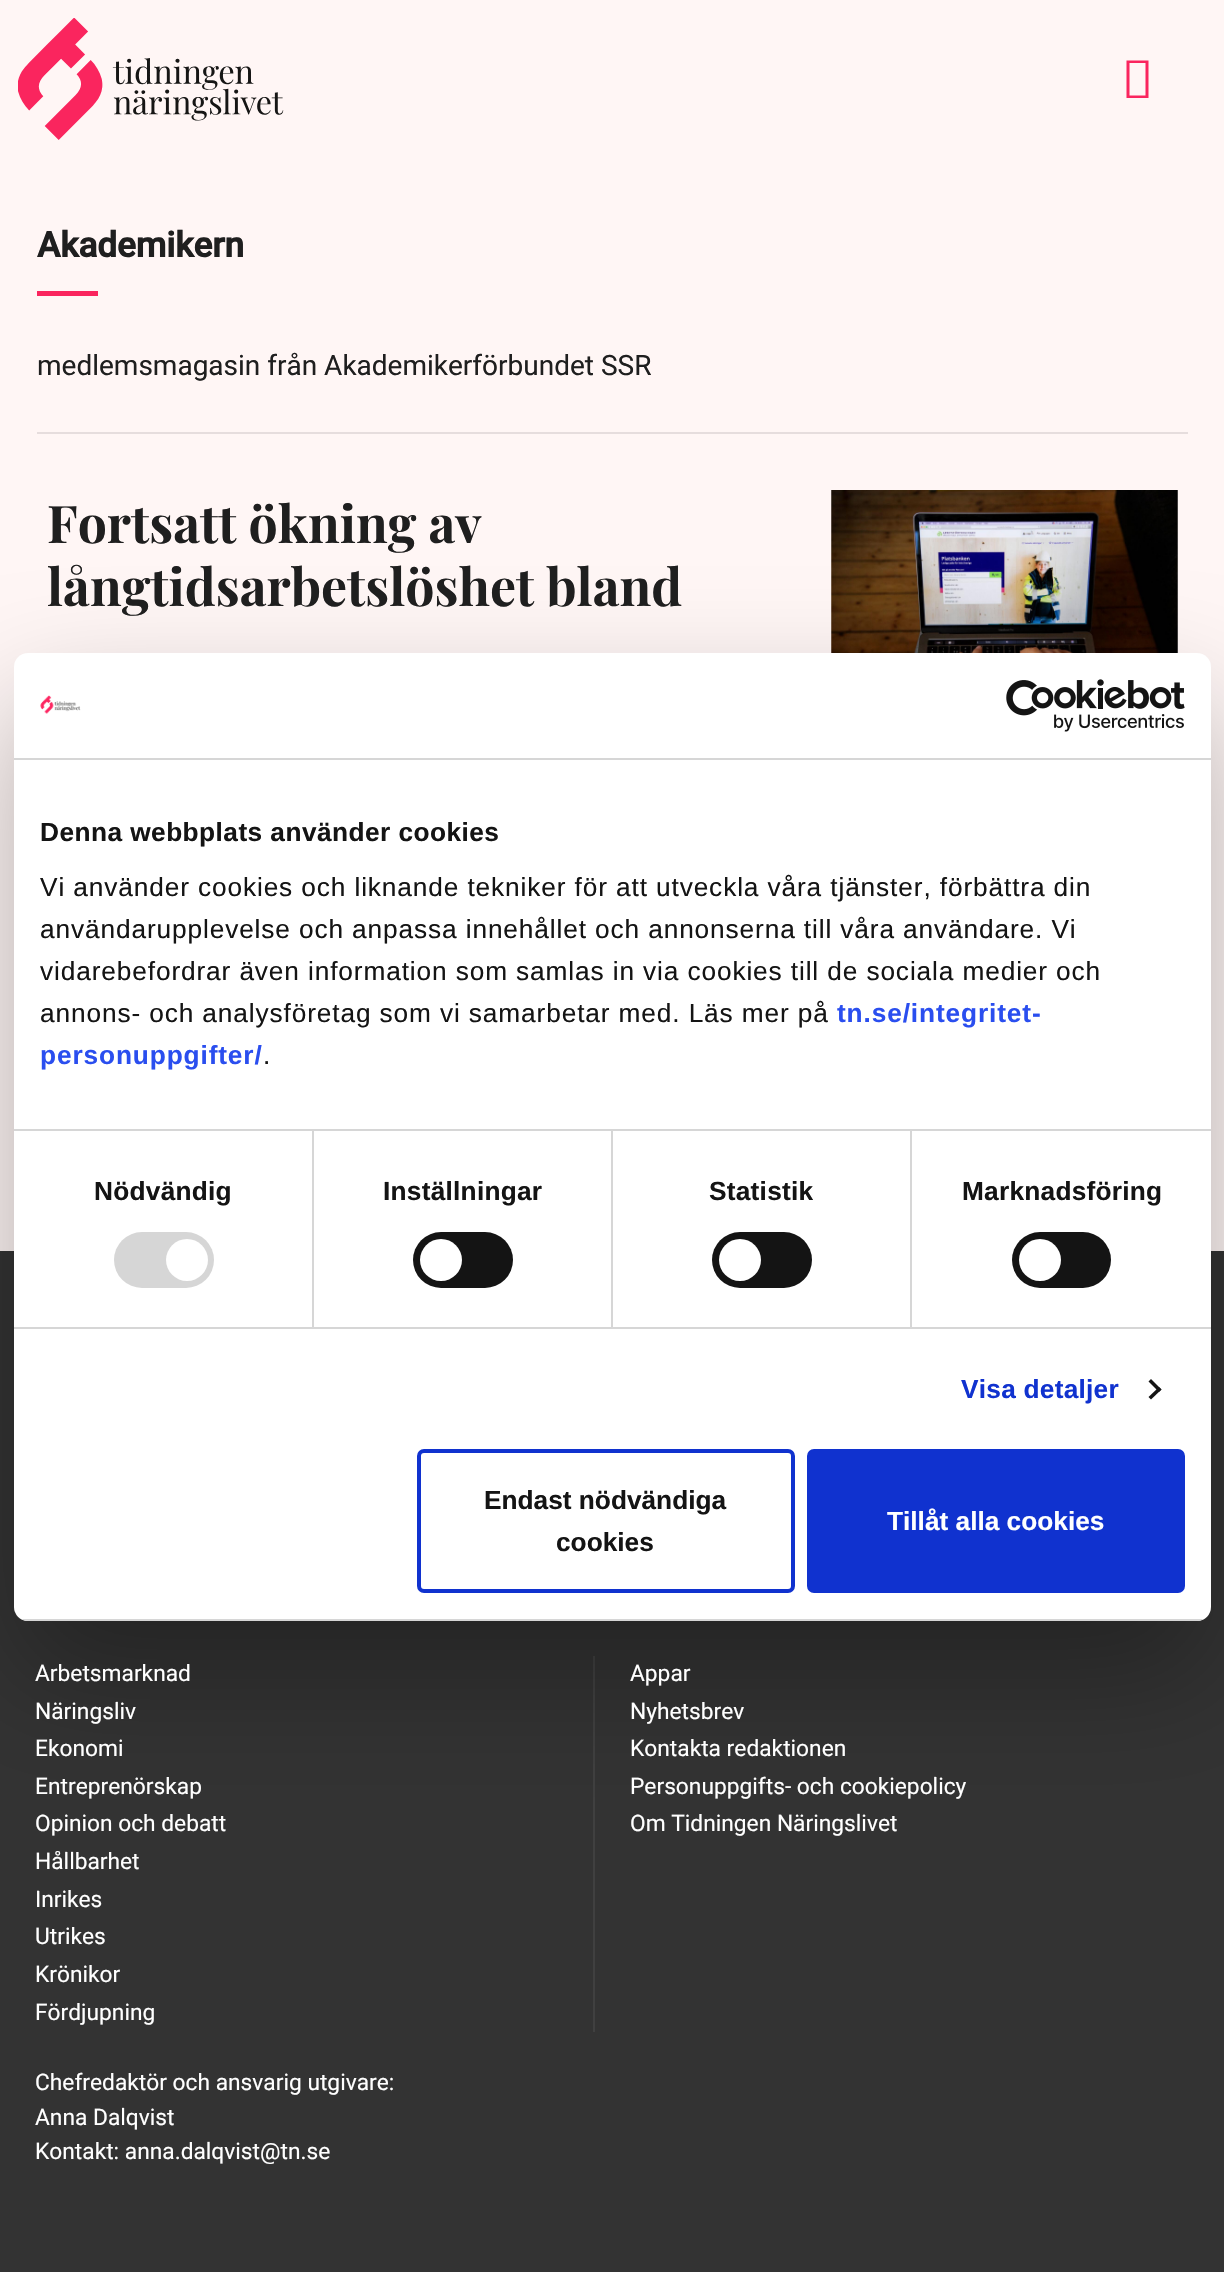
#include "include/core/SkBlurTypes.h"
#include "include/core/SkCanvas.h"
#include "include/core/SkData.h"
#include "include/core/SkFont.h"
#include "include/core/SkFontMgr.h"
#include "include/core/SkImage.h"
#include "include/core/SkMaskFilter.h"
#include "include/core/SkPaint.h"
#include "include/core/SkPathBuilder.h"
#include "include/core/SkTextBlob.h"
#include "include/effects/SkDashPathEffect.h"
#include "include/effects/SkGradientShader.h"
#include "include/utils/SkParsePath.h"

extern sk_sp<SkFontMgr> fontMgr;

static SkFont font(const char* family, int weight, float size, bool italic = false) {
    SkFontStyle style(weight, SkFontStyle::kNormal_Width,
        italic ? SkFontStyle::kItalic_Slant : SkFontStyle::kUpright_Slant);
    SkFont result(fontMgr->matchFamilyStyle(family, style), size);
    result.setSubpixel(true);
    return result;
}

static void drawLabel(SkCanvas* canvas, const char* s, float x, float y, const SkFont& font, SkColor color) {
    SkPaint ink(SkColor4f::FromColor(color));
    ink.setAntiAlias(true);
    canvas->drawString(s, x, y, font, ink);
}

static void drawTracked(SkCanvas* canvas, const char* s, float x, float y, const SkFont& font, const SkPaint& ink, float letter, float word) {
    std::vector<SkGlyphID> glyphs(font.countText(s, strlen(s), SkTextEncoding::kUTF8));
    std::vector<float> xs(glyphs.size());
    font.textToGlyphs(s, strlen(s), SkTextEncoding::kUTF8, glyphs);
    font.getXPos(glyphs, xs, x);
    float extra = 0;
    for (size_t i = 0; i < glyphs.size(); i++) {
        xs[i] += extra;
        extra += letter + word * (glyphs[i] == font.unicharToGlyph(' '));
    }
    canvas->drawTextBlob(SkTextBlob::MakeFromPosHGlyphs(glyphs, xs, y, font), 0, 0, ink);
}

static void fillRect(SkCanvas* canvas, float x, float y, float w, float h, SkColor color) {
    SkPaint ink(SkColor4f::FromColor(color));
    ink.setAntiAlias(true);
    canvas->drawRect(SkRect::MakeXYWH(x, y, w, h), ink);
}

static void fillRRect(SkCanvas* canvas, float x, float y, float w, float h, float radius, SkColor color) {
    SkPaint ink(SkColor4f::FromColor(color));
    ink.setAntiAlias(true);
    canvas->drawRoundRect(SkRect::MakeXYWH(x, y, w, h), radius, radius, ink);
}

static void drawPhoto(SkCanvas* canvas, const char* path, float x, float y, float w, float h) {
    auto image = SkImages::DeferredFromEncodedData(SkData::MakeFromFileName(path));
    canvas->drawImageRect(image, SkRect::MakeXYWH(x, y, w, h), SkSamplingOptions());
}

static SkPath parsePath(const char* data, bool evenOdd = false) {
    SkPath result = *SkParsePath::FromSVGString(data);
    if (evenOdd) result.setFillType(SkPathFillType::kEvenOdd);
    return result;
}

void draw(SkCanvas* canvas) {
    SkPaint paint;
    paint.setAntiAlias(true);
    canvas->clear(0xFFFFF6F5);
    drawPhoto(canvas, "assets/img1.png", 18, 18, 266, 122);
    paint.setColor(0xFFFA255E);
    canvas->drawPath(parsePath("M1126.5 98V60.5H1148.5V98ZM1129.5 95.5H1145.5V63H1129.5Z"), paint);
    SkFont font1 = font("Roboto", 700, 35);
    drawLabel(canvas, "Akademikern", 37, 257, font1, 0xFF1F1F1F);
    fillRect(canvas, 37, 291, 61, 5, 0xFFFA255E);
    SkFont font2 = font("Roboto", 400, 28);
    drawLabel(canvas, "medlemsmagasin från Akademikerförbundet SSR", 37, 375, font2, 0xFF1F1F1F);
    fillRect(canvas, 37, 432, 1151, 2, 0xFFE6DDDD);
    SkFont font3 = font("Playfair Display", 700, 51.75f);
    drawLabel(canvas, "Fortsatt ökning av", 47, 543, font3, 0xFF1F1F1F);
    drawLabel(canvas, "långtidsarbetslöshet bland", 47, 606, font3, 0xFF1F1F1F);
    drawPhoto(canvas, "assets/img2.png", 831, 490, 347, 163);
    fillRect(canvas, 0, 1251, 1224, 1021, 0xFF333333);
    fillRect(canvas, 593, 1656, 2, 376, 0xFF404040);
    paint.setColor(0x4D000000);
    paint.setMaskFilter(SkMaskFilter::MakeBlur(kNormal_SkBlurStyle, 59.5f));
    canvas->drawRoundRect(SkRect::MakeXYWH(14, 709, 1197, 968), 14, 14, paint);
    paint.setMaskFilter(nullptr);
    fillRRect(canvas, 14, 653, 1197, 968, 14, 0xFFFFFFFF);
    fillRect(canvas, 14, 758, 1197, 2, 0xFFD6D6D6);
    drawPhoto(canvas, "assets/img3.png", 40, 695, 41, 19);
    drawPhoto(canvas, "assets/img4.png", 1006, 679, 179, 53);
    fillRect(canvas, 14, 1129, 1197, 2, 0xFFD6D6D6);
    SkFont font4 = font("Liberation Sans", 700, 26.25f);
    paint.setColor(0xFF141414);
    drawTracked(canvas, "Denna webbplats använder cookies", 40, 841, font4, paint, 0.45f, 0);
    SkFont font5 = font("Liberation Sans", 400, 26.25f);
    drawTracked(canvas, "Vi använder cookies och liknande tekniker för att utveckla våra tjänster, förbättra din", 40, 896, font5, paint, 0.88f, 0);
    drawTracked(canvas, "användarupplevelse och anpassa innehållet och annonserna till våra användare. Vi", 40, 938, font5, paint, 0.88f, 0);
    drawTracked(canvas, "vidarebefordrar även information som samlas in via cookies till de sociala medier och", 40, 980, font5, paint, 0.88f, 0);
    drawTracked(canvas, "annons- och analysföretag som vi samarbetar med. Läs mer på", 40, 1022, font5, paint, 0.88f, 0);
    paint.setColor(0xFF2A4EEF);
    drawTracked(canvas, "tn.se/integritet-", 837, 1022, font4, paint, 0.88f, 0);
    drawTracked(canvas, "personuppgifter/", 40, 1064, font4, paint, 0.88f, 0);
    paint.setColor(0xFF141414);
    drawTracked(canvas, ".", 263, 1064, font5, paint, 0.88f, 0);
    fillRect(canvas, 14, 1327, 1197, 2, 0xFFD6D6D6);
    fillRect(canvas, 312, 1131, 2, 196, 0xFFD6D6D6);
    drawTracked(canvas, "Nödvändig", 94, 1200, font4, paint, 0.25f, 0);
    fillRRect(canvas, 114, 1232, 100, 56, 28, 0xFFD6D6D6);
    paint.setColor(0xFFFFFFFF);
    canvas->drawCircle(187, 1260, 21, paint);
    fillRect(canvas, 611, 1131, 2, 196, 0xFFD6D6D6);
    paint.setColor(0xFF141414);
    drawTracked(canvas, "Inställningar", 383, 1200, font4, paint, 0.25f, 0);
    fillRRect(canvas, 413, 1232, 100, 56, 28, 0xFF141414);
    paint.setColor(0xFFFFFFFF);
    canvas->drawCircle(441, 1260, 21, paint);
    fillRect(canvas, 910, 1131, 2, 196, 0xFFD6D6D6);
    paint.setColor(0xFF141414);
    drawTracked(canvas, "Statistik", 709, 1200, font4, paint, 0.25f, 0);
    fillRRect(canvas, 712, 1232, 100, 56, 28, 0xFF141414);
    paint.setColor(0xFFFFFFFF);
    canvas->drawCircle(740, 1260, 21, paint);
    paint.setColor(0xFF141414);
    drawTracked(canvas, "Marknadsföring", 962, 1200, font4, paint, 0.25f, 0);
    fillRRect(canvas, 1012, 1232, 99, 56, 28, 0xFF141414);
    paint.setColor(0xFFFFFFFF);
    canvas->drawCircle(1040, 1260, 21, paint);
    paint.setColor(0xFF1032CF);
    drawTracked(canvas, "Visa detaljer", 961, 1398, font4, paint, 0.25f, 0);
    paint.setColor(0xFF141414);
    canvas->drawPath(parsePath("M1151 1379L1161.5 1389.5L1159 1392L1148.5 1381.5Z"), paint);
    canvas->drawPath(parsePath("M1159 1387L1161.5 1389.5L1151 1399.5L1148.5 1397Z"), paint);
    canvas->save();
    canvas->clipPath(parsePath("M28 653H1197C1204.5 653 1211 659.5 1211 667V1607C1211 1614.5 1204.5 1621 1197 1621H28C20.5 1621 14 1614.5 14 1607V667C14 659.5 20.5 653 28 653Z"), true);
    fillRect(canvas, 14, 1619, 1197, 2, 0xFFD6D6D6);
    canvas->restore();
    paint.setStroke(true);
    paint.setStrokeWidth(4);
    paint.setColor(0xFF1032CF);
    canvas->drawRoundRect(SkRect::MakeXYWH(419, 1451, 374, 140), 5, 5, paint);
    drawLabel(canvas, "Endast nödvändiga", 484, 1509, font4, 0xFF141414);
    drawLabel(canvas, "cookies", 556, 1551, font4, 0xFF141414);
    paint.setStroke(false);
    canvas->drawRoundRect(SkRect::MakeXYWH(809, 1451, 374, 140), 5, 5, paint);
    paint.setStroke(true);
    canvas->drawRoundRect(SkRect::MakeXYWH(809, 1451, 374, 140), 5, 5, paint);
    drawLabel(canvas, "Tillåt alla cookies", 887, 1530, font4, 0xFFFFFFFF);
    SkFont font6 = font("Roboto", 400, 22.75f);
    drawLabel(canvas, "Arbetsmarknad", 35, 1681, font6, 0xFFFFFFFF);
    drawLabel(canvas, "Näringsliv", 35, 1719, font6, 0xFFFFFFFF);
    drawLabel(canvas, "Ekonomi", 35, 1756, font6, 0xFFFFFFFF);
    drawLabel(canvas, "Entreprenörskap", 35, 1794, font6, 0xFFFFFFFF);
    drawLabel(canvas, "Opinion och debatt", 35, 1831, font6, 0xFFFFFFFF);
    drawLabel(canvas, "Hållbarhet", 35, 1869, font6, 0xFFFFFFFF);
    drawLabel(canvas, "Inrikes", 35, 1907, font6, 0xFFFFFFFF);
    drawLabel(canvas, "Utrikes", 35, 1944, font6, 0xFFFFFFFF);
    drawLabel(canvas, "Krönikor", 35, 1982, font6, 0xFFFFFFFF);
    drawLabel(canvas, "Fördjupning", 35, 2020, font6, 0xFFFFFFFF);
    drawLabel(canvas, "Appar", 630, 1681, font6, 0xFFFFFFFF);
    drawLabel(canvas, "Nyhetsbrev", 630, 1719, font6, 0xFFFFFFFF);
    drawLabel(canvas, "Kontakta redaktionen", 630, 1756, font6, 0xFFFFFFFF);
    drawLabel(canvas, "Personuppgifts- och cookiepolicy", 630, 1794, font6, 0xFFFFFFFF);
    drawLabel(canvas, "Om Tidningen Näringslivet", 630, 1831, font6, 0xFFFFFFFF);
    drawLabel(canvas, "Chefredaktör och ansvarig utgivare:", 35, 2090, font6, 0xFFFFFFFF);
    drawLabel(canvas, "Anna Dalqvist", 35, 2125, font6, 0xFFFFFFFF);
    drawLabel(canvas, "Kontakt: anna.dalqvist@tn.se", 35, 2159, font6, 0xFFFFFFFF);
}
